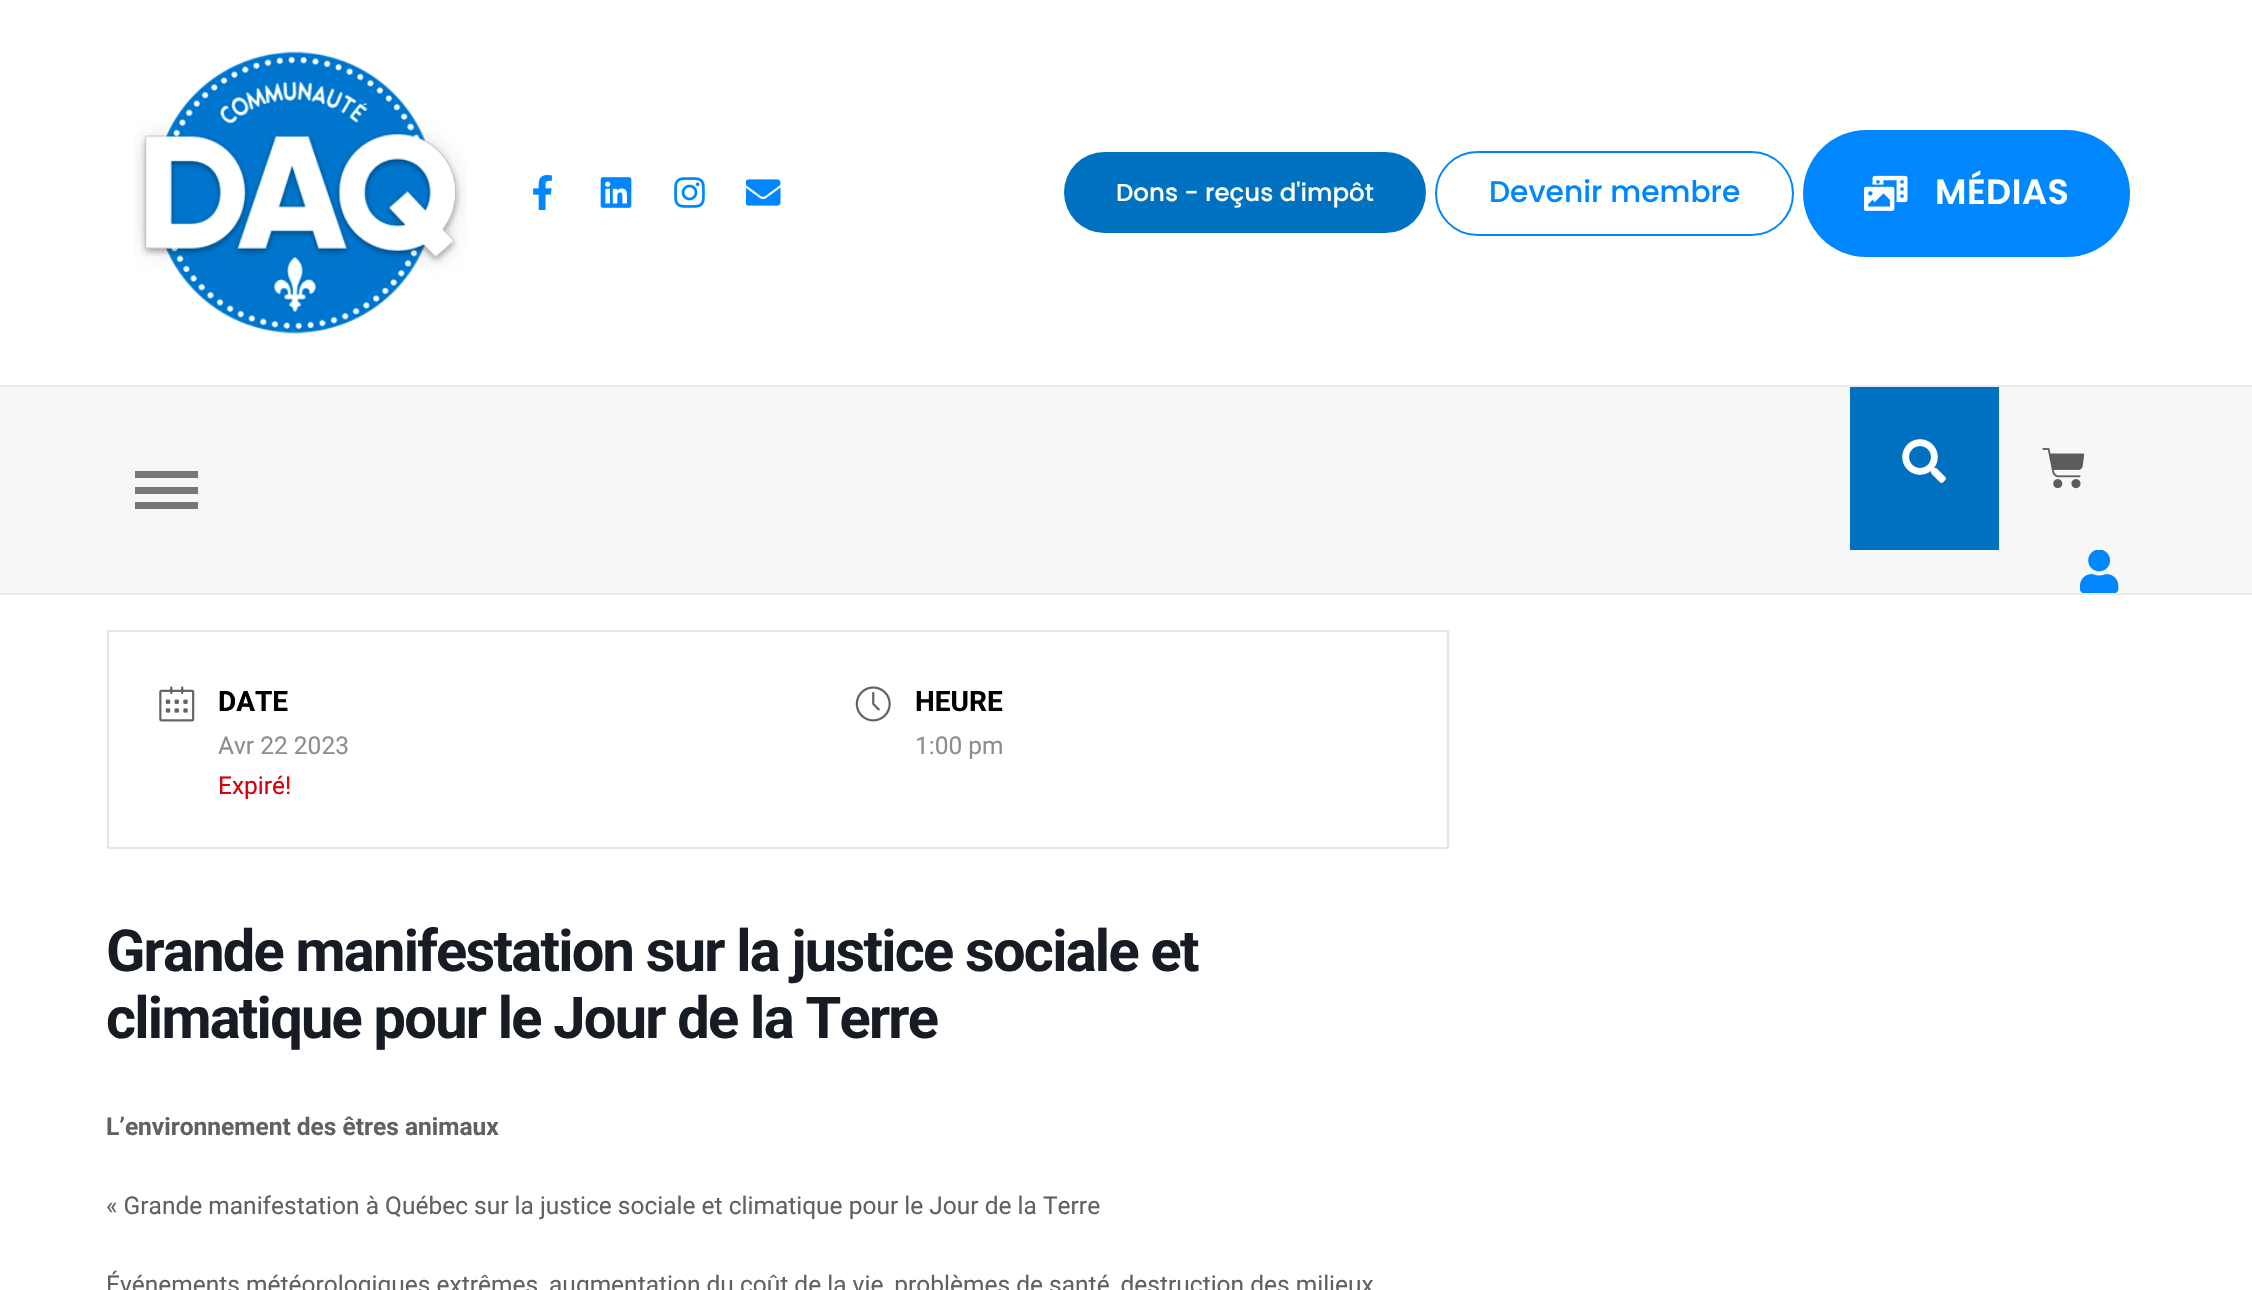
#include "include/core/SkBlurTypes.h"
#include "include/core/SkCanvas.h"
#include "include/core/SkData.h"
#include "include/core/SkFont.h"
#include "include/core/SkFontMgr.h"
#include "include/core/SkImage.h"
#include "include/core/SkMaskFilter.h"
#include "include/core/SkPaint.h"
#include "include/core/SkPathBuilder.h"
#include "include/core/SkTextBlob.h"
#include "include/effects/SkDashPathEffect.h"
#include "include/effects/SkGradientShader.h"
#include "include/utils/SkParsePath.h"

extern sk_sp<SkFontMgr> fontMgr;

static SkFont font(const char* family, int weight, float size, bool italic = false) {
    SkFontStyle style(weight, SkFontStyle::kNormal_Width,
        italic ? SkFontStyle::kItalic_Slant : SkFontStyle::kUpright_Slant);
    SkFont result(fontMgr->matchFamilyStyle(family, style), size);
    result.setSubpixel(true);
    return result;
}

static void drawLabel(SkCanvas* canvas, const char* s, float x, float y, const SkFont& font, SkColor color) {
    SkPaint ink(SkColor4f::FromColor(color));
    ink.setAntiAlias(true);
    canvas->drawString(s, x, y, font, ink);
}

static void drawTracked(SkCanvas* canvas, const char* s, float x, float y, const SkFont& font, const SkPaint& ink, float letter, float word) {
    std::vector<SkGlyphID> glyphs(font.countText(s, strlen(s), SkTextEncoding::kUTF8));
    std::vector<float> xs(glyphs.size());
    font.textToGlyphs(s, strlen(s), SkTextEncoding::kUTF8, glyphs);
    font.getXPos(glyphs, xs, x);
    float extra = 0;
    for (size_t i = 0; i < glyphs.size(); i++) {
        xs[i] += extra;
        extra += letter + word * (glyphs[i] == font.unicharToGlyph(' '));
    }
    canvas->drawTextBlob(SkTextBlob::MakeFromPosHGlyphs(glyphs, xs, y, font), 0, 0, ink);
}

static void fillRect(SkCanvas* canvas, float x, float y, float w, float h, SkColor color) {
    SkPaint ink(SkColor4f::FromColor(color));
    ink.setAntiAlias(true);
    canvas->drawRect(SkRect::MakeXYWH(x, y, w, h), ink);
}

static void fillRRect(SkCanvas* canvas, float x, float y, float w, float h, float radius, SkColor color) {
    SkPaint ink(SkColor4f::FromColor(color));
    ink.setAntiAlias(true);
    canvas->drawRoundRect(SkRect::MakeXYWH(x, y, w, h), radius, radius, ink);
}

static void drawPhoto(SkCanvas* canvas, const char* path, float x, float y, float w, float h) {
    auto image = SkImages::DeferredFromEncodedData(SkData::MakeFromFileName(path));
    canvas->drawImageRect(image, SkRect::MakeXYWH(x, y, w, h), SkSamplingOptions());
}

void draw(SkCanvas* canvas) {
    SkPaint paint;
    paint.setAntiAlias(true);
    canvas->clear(0xFFFFFFFF);
    drawPhoto(canvas, "assets/img1.png", 134, 51, 333, 283);
    drawPhoto(canvas, "assets/img2.png", 533, 175, 19, 35);
    drawPhoto(canvas, "assets/img3.png", 600, 177, 32, 31);
    drawPhoto(canvas, "assets/img4.png", 674, 177, 31, 31);
    drawPhoto(canvas, "assets/img5.png", 746, 179, 35, 27);
    fillRRect(canvas, 1064, 152, 362, 81, 40.5f, 0xFF0071C1);
    SkFont font1 = font("Poppins", 500, 24.5f);
    drawLabel(canvas, "Dons - reçus d'impôt", 1116, 201, font1, 0xFFFFFFFF);
    paint.setStroke(true);
    paint.setStrokeWidth(2);
    paint.setColor(0xFF0086FF);
    canvas->drawRoundRect(SkRect::MakeXYWH(1436, 152, 357, 83), 41.5f, 41.5f, paint);
    SkFont font2 = font("Poppins", 500, 29.75f);
    drawLabel(canvas, "Devenir membre", 1489, 202, font2, 0xFF0086FF);
    fillRRect(canvas, 1803, 130, 327, 127, 63.5f, 0xFF0086FF);
    drawPhoto(canvas, "assets/img6.png", 1864, 175, 44, 36);
    SkFont font3 = font("Poppins", 600, 35);
    paint.setStroke(false);
    paint.setColor(0xFFFFFFFF);
    drawTracked(canvas, "MÉDIAS", 1935, 204, font3, paint, 0.5f, 0);
    fillRect(canvas, 0, 387, 2252, 206, 0xFFF7F7F7);
    fillRect(canvas, 0, 385, 2252, 2, 0xFFEAEAEA);
    fillRect(canvas, 0, 593, 2252, 2, 0xFFEAEAEA);
    fillRect(canvas, 135, 471, 63, 7, 0xFF777777);
    fillRect(canvas, 135, 487, 63, 7, 0xFF777777);
    fillRect(canvas, 135, 502, 63, 7, 0xFF777777);
    fillRect(canvas, 1850, 387, 149, 163, 0xFF0071C1);
    drawPhoto(canvas, "assets/img7.png", 1902, 439, 44, 44);
    drawPhoto(canvas, "assets/img8.png", 2042, 448, 43, 41);
    drawPhoto(canvas, "assets/img9.png", 2080, 550, 39, 43);
    paint.setStroke(true);
    paint.setColor(0xFFE6E6E6);
    canvas->drawRect(SkRect::MakeXYWH(108, 631, 1340, 217), paint);
    drawPhoto(canvas, "assets/img10.png", 159, 686, 36, 36);
    SkFont font4 = font("Roboto", 700, 28);
    drawLabel(canvas, "DATE", 218, 711, font4, 0xFF000000);
    SkFont font5 = font("Roboto", 400, 24.5f);
    drawLabel(canvas, "Avr 22 2023", 218, 754, font5, 0xFF8D8D8D);
    drawLabel(canvas, "Expiré!", 218, 794, font5, 0xFFD8000C);
    drawPhoto(canvas, "assets/img11.png", 855, 686, 36, 36);
    drawLabel(canvas, "HEURE", 915, 711, font4, 0xFF000000);
    drawLabel(canvas, "1:00 pm", 915, 754, font5, 0xFF8D8D8D);
    SkFont font6 = font("Roboto", 700, 57.75f);
    paint.setStroke(false);
    paint.setColor(0xFF171C24);
    drawTracked(canvas, "Grande manifestation sur la justice sociale et", 106, 971, font6, paint, -1.75f, 0);
    drawTracked(canvas, "climatique pour le Jour de la Terre", 106, 1038, font6, paint, -1.75f, 0);
    SkFont font7 = font("Roboto", 700, 24.5f);
    drawLabel(canvas, "L’environnement des êtres animaux", 106, 1135, font7, 0xFF616161);
    drawLabel(canvas, "« Grande manifestation à Québec sur la justice sociale et climatique pour le Jour de la Terre", 106, 1214, font5, 0xFF616161);
    drawLabel(canvas, "Événements météorologiques extrêmes, augmentation du coût de la vie, problèmes de santé, destruction des milieux", 106, 1293, font5, 0xFF616161);
}
